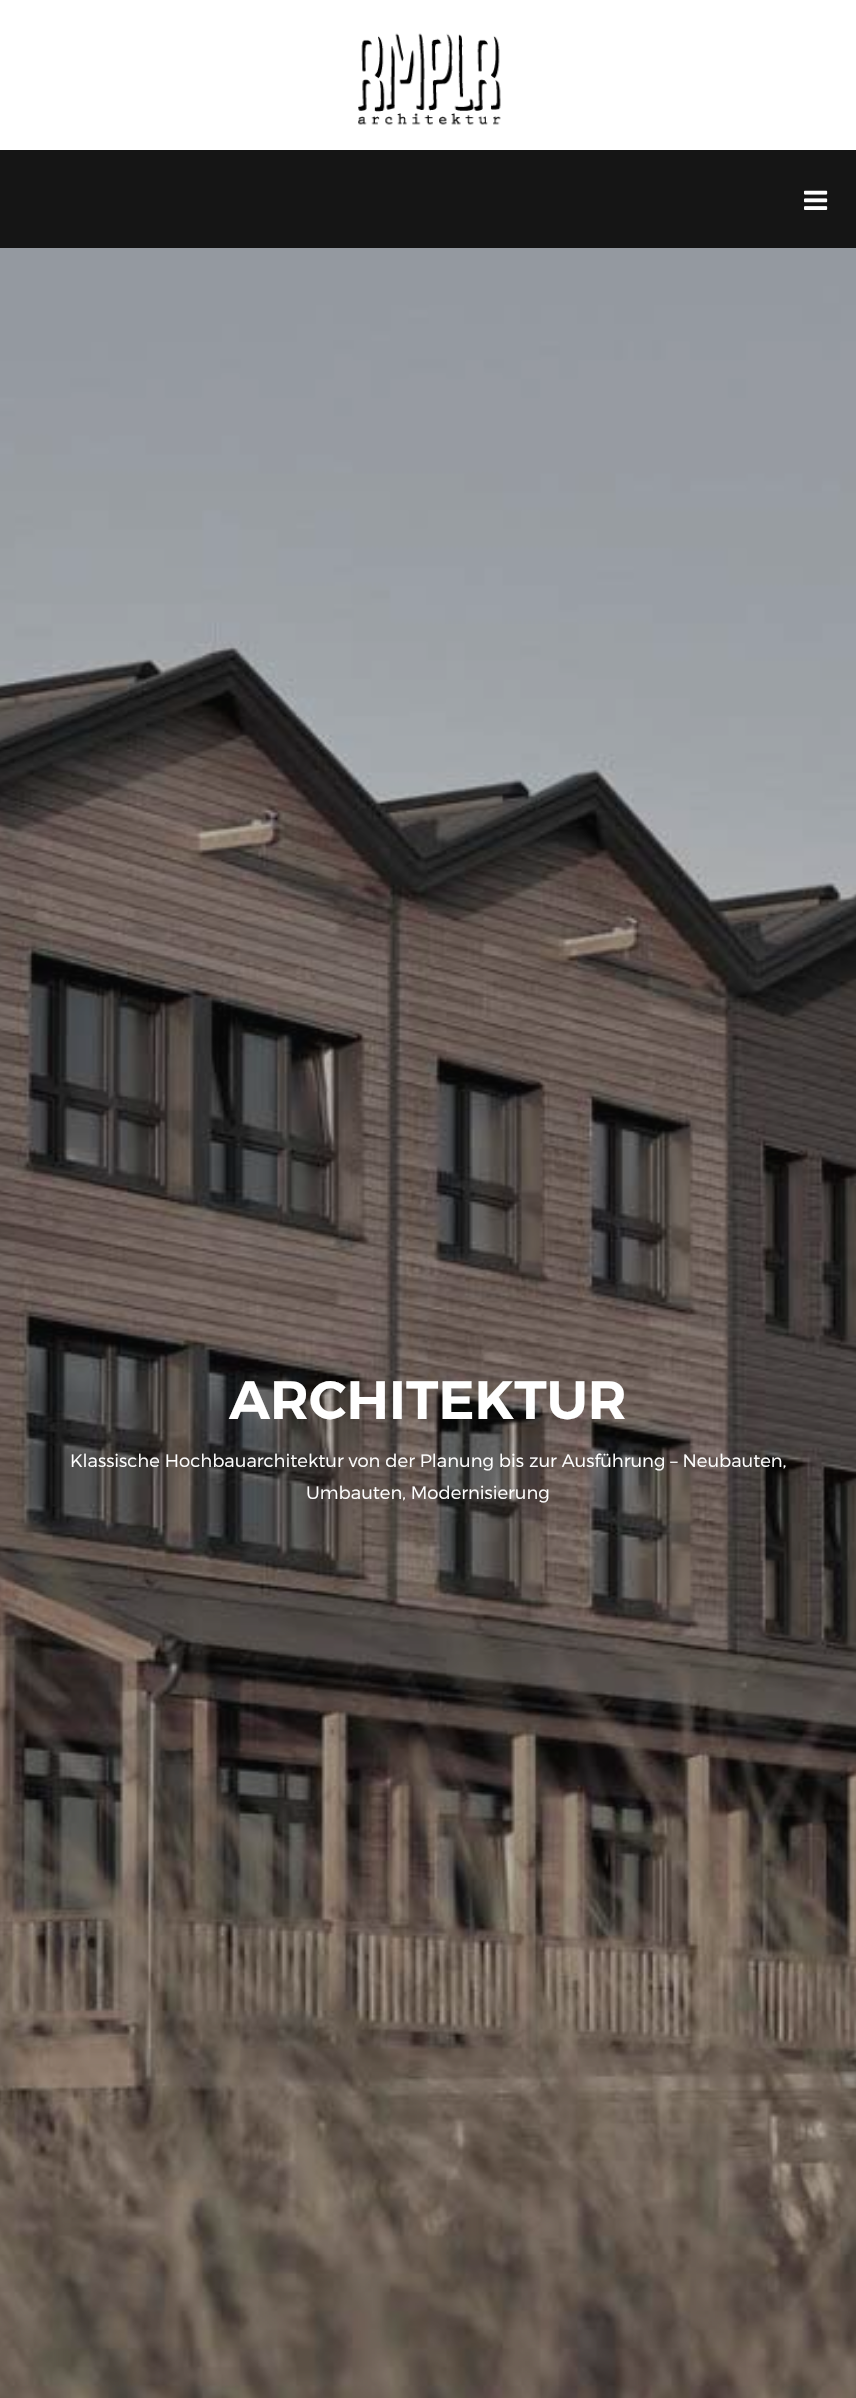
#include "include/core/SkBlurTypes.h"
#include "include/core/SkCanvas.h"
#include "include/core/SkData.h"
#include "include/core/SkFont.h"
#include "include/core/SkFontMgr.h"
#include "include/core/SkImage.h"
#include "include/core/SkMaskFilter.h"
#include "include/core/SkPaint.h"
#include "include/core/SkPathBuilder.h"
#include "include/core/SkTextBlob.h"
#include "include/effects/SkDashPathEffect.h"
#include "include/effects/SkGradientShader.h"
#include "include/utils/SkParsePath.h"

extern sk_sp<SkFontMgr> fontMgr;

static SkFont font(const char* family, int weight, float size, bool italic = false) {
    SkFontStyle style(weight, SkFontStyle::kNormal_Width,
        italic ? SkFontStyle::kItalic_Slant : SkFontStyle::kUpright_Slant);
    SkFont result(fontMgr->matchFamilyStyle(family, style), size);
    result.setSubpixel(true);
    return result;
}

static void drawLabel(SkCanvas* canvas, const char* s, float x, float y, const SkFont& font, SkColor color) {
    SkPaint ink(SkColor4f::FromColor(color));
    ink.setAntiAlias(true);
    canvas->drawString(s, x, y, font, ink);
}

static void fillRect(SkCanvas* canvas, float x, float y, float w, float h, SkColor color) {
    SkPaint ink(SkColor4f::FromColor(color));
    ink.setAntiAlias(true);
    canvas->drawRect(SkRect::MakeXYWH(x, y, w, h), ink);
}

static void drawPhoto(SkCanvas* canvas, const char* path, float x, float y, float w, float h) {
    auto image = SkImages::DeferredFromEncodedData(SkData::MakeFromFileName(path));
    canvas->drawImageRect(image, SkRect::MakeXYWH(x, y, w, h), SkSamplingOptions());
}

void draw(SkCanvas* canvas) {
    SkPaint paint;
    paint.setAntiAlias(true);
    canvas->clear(0xFFFFFFFF);
    drawPhoto(canvas, "assets/img1.png", 358, 33, 143, 92);
    fillRect(canvas, 0, 150, 856, 98, 0xFF151515);
    drawPhoto(canvas, "assets/img2.png", 804, 190, 24, 20);
    drawPhoto(canvas, "assets/img3.png", 0, 248, 856, 2150);
    SkFont font1 = font("Montserrat", 600, 54);
    drawLabel(canvas, "ARCHITEKTUR", 229, 1419, font1, 0xFFFFFFFF);
    SkFont font2 = font("Montserrat", 300, 18);
    drawLabel(canvas, "Klassische Hochbauarchitektur von der Planung bis zur Ausführung – Neubauten,", 70, 1467, font2, 0xFFFFFFFF);
    drawLabel(canvas, "Umbauten, Modernisierung", 306, 1499, font2, 0xFFFFFFFF);
}
